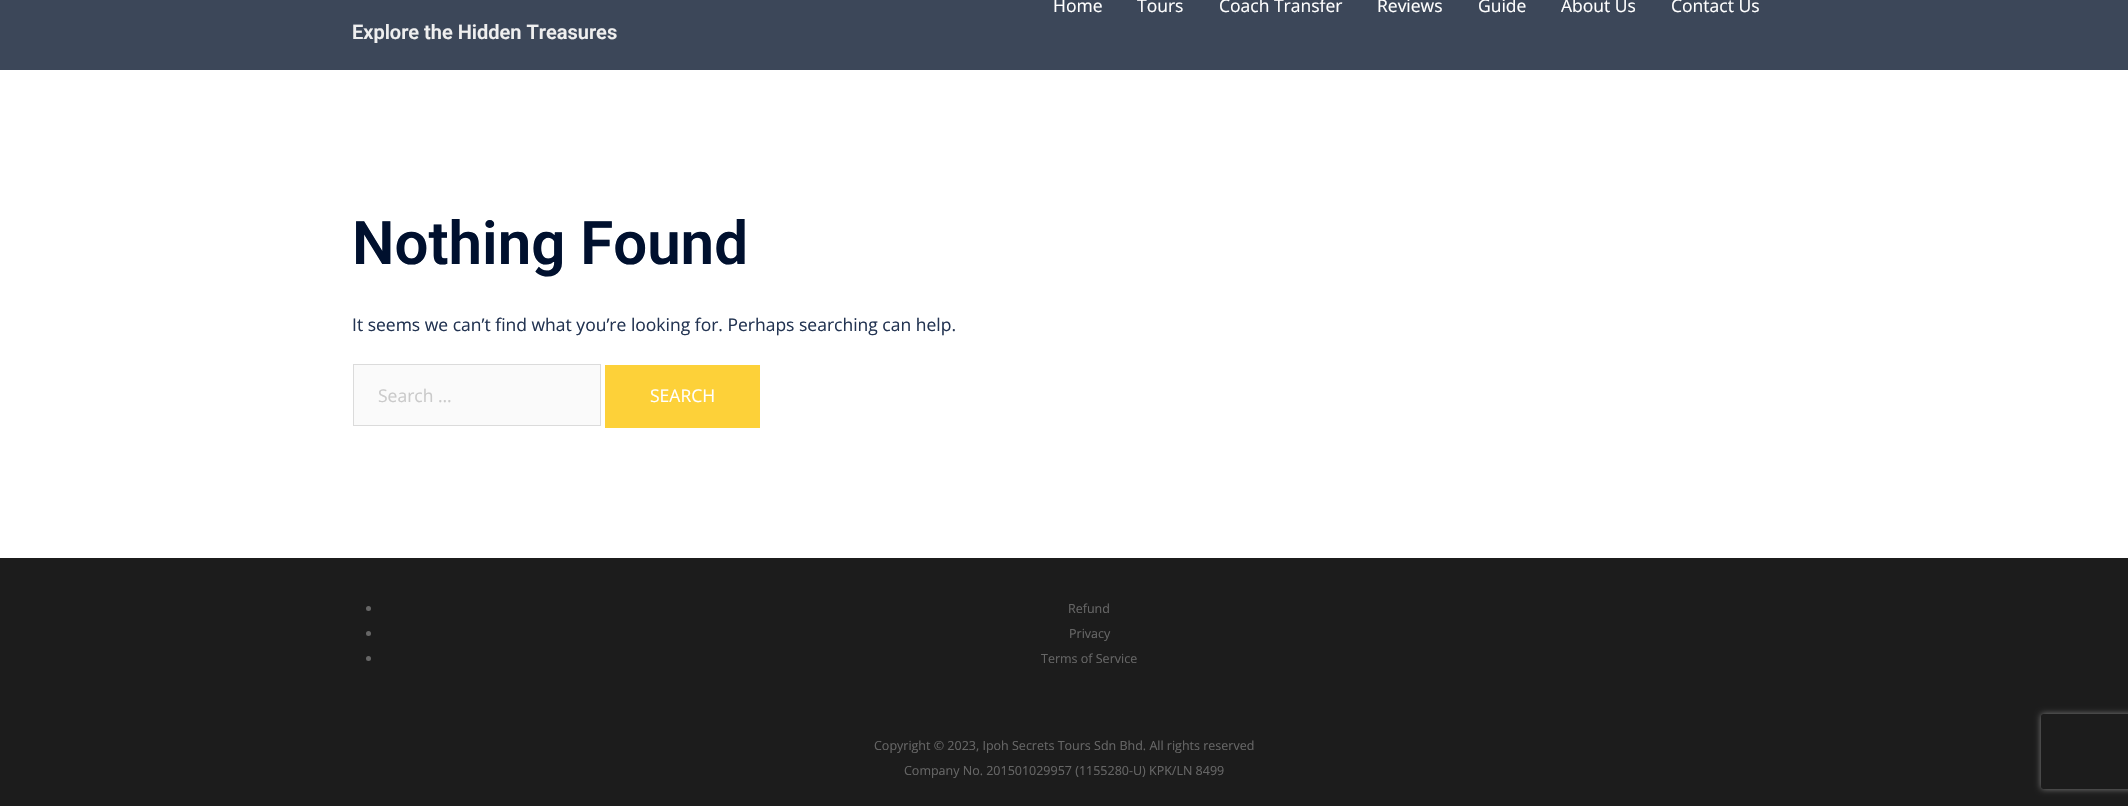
#include "include/core/SkBlurTypes.h"
#include "include/core/SkCanvas.h"
#include "include/core/SkData.h"
#include "include/core/SkFont.h"
#include "include/core/SkFontMgr.h"
#include "include/core/SkImage.h"
#include "include/core/SkMaskFilter.h"
#include "include/core/SkPaint.h"
#include "include/core/SkPathBuilder.h"
#include "include/core/SkTextBlob.h"
#include "include/effects/SkDashPathEffect.h"
#include "include/effects/SkGradientShader.h"
#include "include/utils/SkParsePath.h"

extern sk_sp<SkFontMgr> fontMgr;

static SkFont font(const char* family, int weight, float size, bool italic = false) {
    SkFontStyle style(weight, SkFontStyle::kNormal_Width,
        italic ? SkFontStyle::kItalic_Slant : SkFontStyle::kUpright_Slant);
    SkFont result(fontMgr->matchFamilyStyle(family, style), size);
    result.setSubpixel(true);
    return result;
}

static void drawLabel(SkCanvas* canvas, const char* s, float x, float y, const SkFont& font, SkColor color) {
    SkPaint ink(SkColor4f::FromColor(color));
    ink.setAntiAlias(true);
    canvas->drawString(s, x, y, font, ink);
}

static void fillRect(SkCanvas* canvas, float x, float y, float w, float h, SkColor color) {
    SkPaint ink(SkColor4f::FromColor(color));
    ink.setAntiAlias(true);
    canvas->drawRect(SkRect::MakeXYWH(x, y, w, h), ink);
}

static SkPath parsePath(const char* data, bool evenOdd = false) {
    SkPath result = *SkParsePath::FromSVGString(data);
    if (evenOdd) result.setFillType(SkPathFillType::kEvenOdd);
    return result;
}

void draw(SkCanvas* canvas) {
    SkPaint paint;
    paint.setAntiAlias(true);
    canvas->clear(0xFFFFFFFF);
    fillRect(canvas, 0, 0, 2128, 70, 0xFF3C4759);
    SkFont font1 = font("Open Sans", 400, 17.5f);
    drawLabel(canvas, "Home", 1053, 12, font1, 0xFFFFFFFF);
    drawLabel(canvas, "Tours", 1137, 12, font1, 0xFFFFFFFF);
    drawLabel(canvas, "Coach Transfer", 1219, 12, font1, 0xFFFFFFFF);
    drawLabel(canvas, "Reviews", 1377, 12, font1, 0xFFFFFFFF);
    drawLabel(canvas, "Guide", 1478, 12, font1, 0xFFFFFFFF);
    drawLabel(canvas, "About Us", 1561, 12, font1, 0xFFFFFFFF);
    drawLabel(canvas, "Contact Us", 1671, 12, font1, 0xFFFFFFFF);
    SkFont font2 = font("Roboto", 600, 20);
    drawLabel(canvas, "Explore the Hidden Treasures", 352, 39, font2, 0xFFEFEFEF);
    SkFont font3 = font("Roboto", 600, 60);
    drawLabel(canvas, "Nothing Found", 352, 264, font3, 0xFF00102E);
    drawLabel(canvas, "It seems we can’t find what you’re looking for. Perhaps searching can help.", 352, 331, font1, 0xFF233452);
    paint.setColor(0xFFFAFAFA);
    canvas->drawRect(SkRect::MakeXYWH(353.5f, 364.5f, 247, 61), paint);
    paint.setStroke(true);
    paint.setStrokeWidth(1);
    paint.setColor(0xFFDBDBDB);
    canvas->drawRect(SkRect::MakeXYWH(353.5f, 364.5f, 247, 61), paint);
    drawLabel(canvas, "Search …", 378, 402, font1, 0xFFCACACA);
    fillRect(canvas, 605, 365, 155, 63, 0xFFFDD139);
    drawLabel(canvas, "SEARCH", 650, 402, font1, 0xFFFFFFFF);
    fillRect(canvas, 0, 558, 2128, 248, 0xFF1C1C1C);
    paint.setStroke(false);
    paint.setColor(0xFF666666);
    canvas->drawCircle(368.5f, 608.5f, 2.5f, paint);
    SkFont font4 = font("Open Sans", 400, 12.5f);
    drawLabel(canvas, "Refund", 1068, 613, font4, 0xFF666666);
    canvas->drawCircle(368.5f, 633.5f, 2.5f, paint);
    drawLabel(canvas, "Privacy", 1069, 638, font4, 0xFF666666);
    canvas->drawCircle(368.5f, 658.5f, 2.5f, paint);
    drawLabel(canvas, "Terms of Service", 1041, 663, font4, 0xFF666666);
    drawLabel(canvas, "Copyright © 2023, Ipoh Secrets Tours Sdn Bhd. All rights reserved", 874, 750, font4, 0xFF666666);
    drawLabel(canvas, "Company No. 201501029957 (1155280-U) KPK/LN 8499", 904, 775, font4, 0xFF666666);
    canvas->save();
    canvas->clipPath(parsePath("M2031 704H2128V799H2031ZM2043.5 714H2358.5C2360 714 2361 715 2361 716.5V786.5C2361 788 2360 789 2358.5 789H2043.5C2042 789 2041 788 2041 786.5V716.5C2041 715 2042 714 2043.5 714Z", true), true);
    paint.setColor(0xFF808080);
    paint.setMaskFilter(SkMaskFilter::MakeBlur(kNormal_SkBlurStyle, 3));
    canvas->drawRoundRect(SkRect::MakeXYWH(2041, 714, 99, 75), 2.5f, 2.5f, paint);
    paint.setMaskFilter(nullptr);
    canvas->restore();
}
